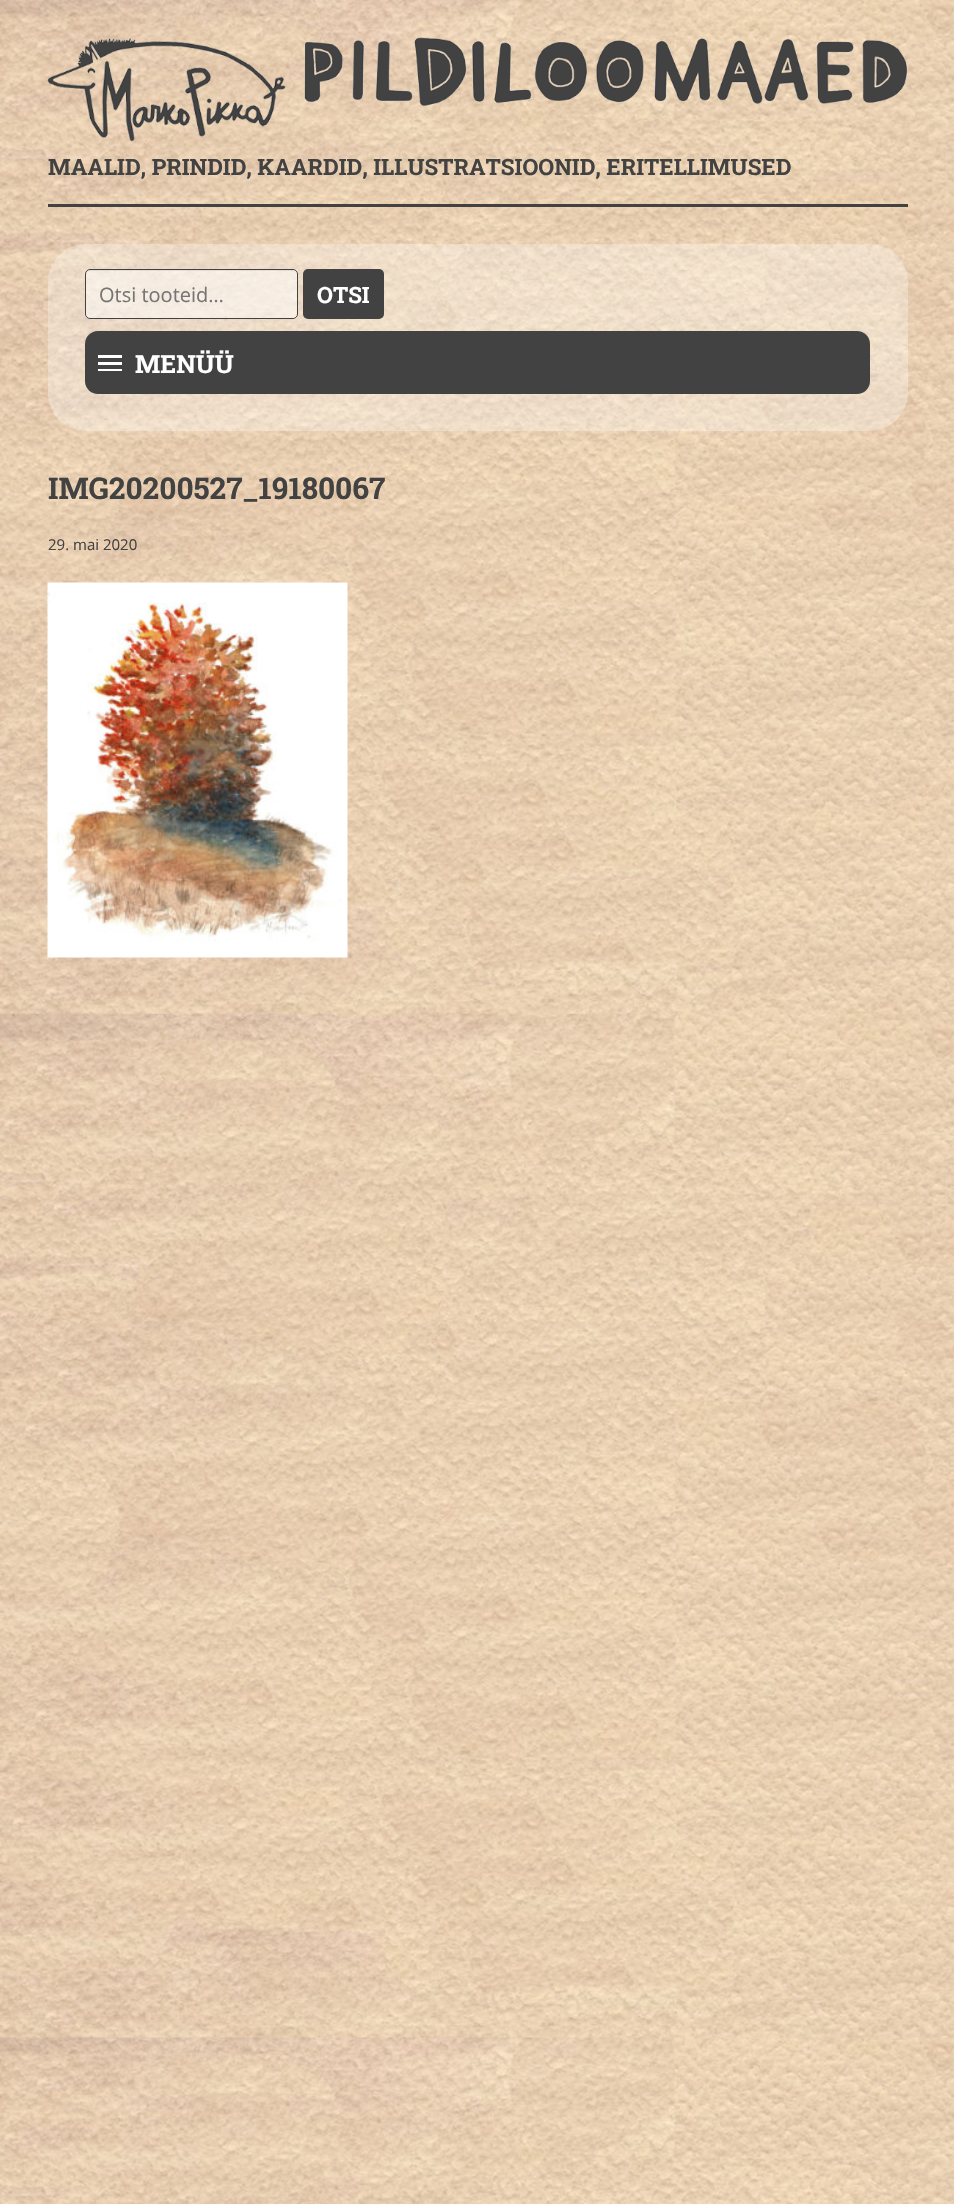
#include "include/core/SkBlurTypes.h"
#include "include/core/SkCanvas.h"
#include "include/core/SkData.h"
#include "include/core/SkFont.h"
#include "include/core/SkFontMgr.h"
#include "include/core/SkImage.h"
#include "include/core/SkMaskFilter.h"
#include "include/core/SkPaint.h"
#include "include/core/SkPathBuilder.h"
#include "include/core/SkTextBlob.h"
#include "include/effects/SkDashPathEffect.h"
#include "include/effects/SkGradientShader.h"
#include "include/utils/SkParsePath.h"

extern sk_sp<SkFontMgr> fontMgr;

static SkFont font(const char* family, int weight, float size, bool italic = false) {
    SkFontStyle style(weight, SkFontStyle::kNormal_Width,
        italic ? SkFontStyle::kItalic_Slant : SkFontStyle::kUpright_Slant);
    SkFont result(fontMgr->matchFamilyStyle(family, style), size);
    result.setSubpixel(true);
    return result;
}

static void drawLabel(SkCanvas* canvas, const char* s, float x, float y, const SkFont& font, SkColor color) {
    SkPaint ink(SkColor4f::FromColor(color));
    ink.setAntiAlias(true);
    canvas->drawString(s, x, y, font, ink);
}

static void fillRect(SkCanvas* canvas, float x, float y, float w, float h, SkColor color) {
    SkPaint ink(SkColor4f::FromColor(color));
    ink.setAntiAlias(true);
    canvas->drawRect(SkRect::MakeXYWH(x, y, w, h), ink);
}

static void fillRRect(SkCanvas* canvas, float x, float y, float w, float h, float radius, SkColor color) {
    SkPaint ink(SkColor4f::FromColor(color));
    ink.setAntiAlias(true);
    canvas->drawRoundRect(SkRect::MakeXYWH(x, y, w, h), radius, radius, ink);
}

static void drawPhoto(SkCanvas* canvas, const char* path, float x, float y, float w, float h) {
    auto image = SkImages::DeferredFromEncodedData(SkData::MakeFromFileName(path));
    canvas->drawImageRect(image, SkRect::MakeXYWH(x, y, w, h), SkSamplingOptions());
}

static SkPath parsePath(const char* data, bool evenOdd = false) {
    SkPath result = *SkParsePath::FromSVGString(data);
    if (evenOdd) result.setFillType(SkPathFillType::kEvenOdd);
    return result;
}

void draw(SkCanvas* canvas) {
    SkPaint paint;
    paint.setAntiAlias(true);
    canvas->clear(0xFFFFFFFF);
    drawPhoto(canvas, "assets/img1.png", 0, 0, 954, 2204);
    fillRect(canvas, 48, 204, 860, 3, 0xFF424242);
    drawPhoto(canvas, "assets/img2.png", 47, 37, 861, 105);
    SkFont font1 = font("Roboto Slab", 700, 22.5f);
    drawLabel(canvas, "MAALID, PRINDID, KAARDID, ILLUSTRATSIOONID, ERITELLIMUSED", 48, 175, font1, 0xFF424242);
    fillRRect(canvas, 48, 244, 860, 187, 38, 0x4DFFFFFF);
    fillRRect(canvas, 85, 269, 213, 50, 5, 0x80FFFFFF);
    paint.setColor(0x12000000);
    canvas->drawPath(parsePath("M90 271H292C295 271 296 273 296 275V274C296 272 294 270 292 270H90C88 270 86 272 86 274V275C86 273 88 271 90 271Z"), paint);
    paint.setStroke(true);
    paint.setStrokeWidth(1);
    paint.setColor(0xFF424242);
    canvas->drawRoundRect(SkRect::MakeXYWH(85.5f, 269.5f, 212, 49), 4.5f, 4.5f, paint);
    SkFont font2 = font("Open Sans", 400, 20);
    drawLabel(canvas, "Otsi tooteid…", 99, 302, font2, 0xFF757575);
    fillRRect(canvas, 303, 269, 81, 50, 5, 0xFF424242);
    drawLabel(canvas, "OTSI", 317, 303, font1, 0xFFFFFFFF);
    fillRRect(canvas, 85, 331, 785, 63, 13, 0xFF424242);
    fillRect(canvas, 98, 355, 24, 3, 0xFFFFFFFF);
    fillRect(canvas, 98, 362, 24, 3, 0xFFFFFFFF);
    fillRect(canvas, 98, 369, 24, 2, 0xFFFFFFFF);
    SkFont font3 = font("Roboto Slab", 700, 25);
    drawLabel(canvas, "MENÜÜ", 135, 373, font3, 0xFFFFFFFF);
    SkFont font4 = font("Roboto Slab", 700, 30);
    drawLabel(canvas, "IMG20200527_19180067", 48, 499, font4, 0xFF424242);
    SkFont font5 = font("Open Sans", 400, 15);
    drawLabel(canvas, "29. mai 2020", 48, 550, font5, 0xFF424242);
    drawPhoto(canvas, "assets/img3.png", 47, 582, 301, 376);
}
